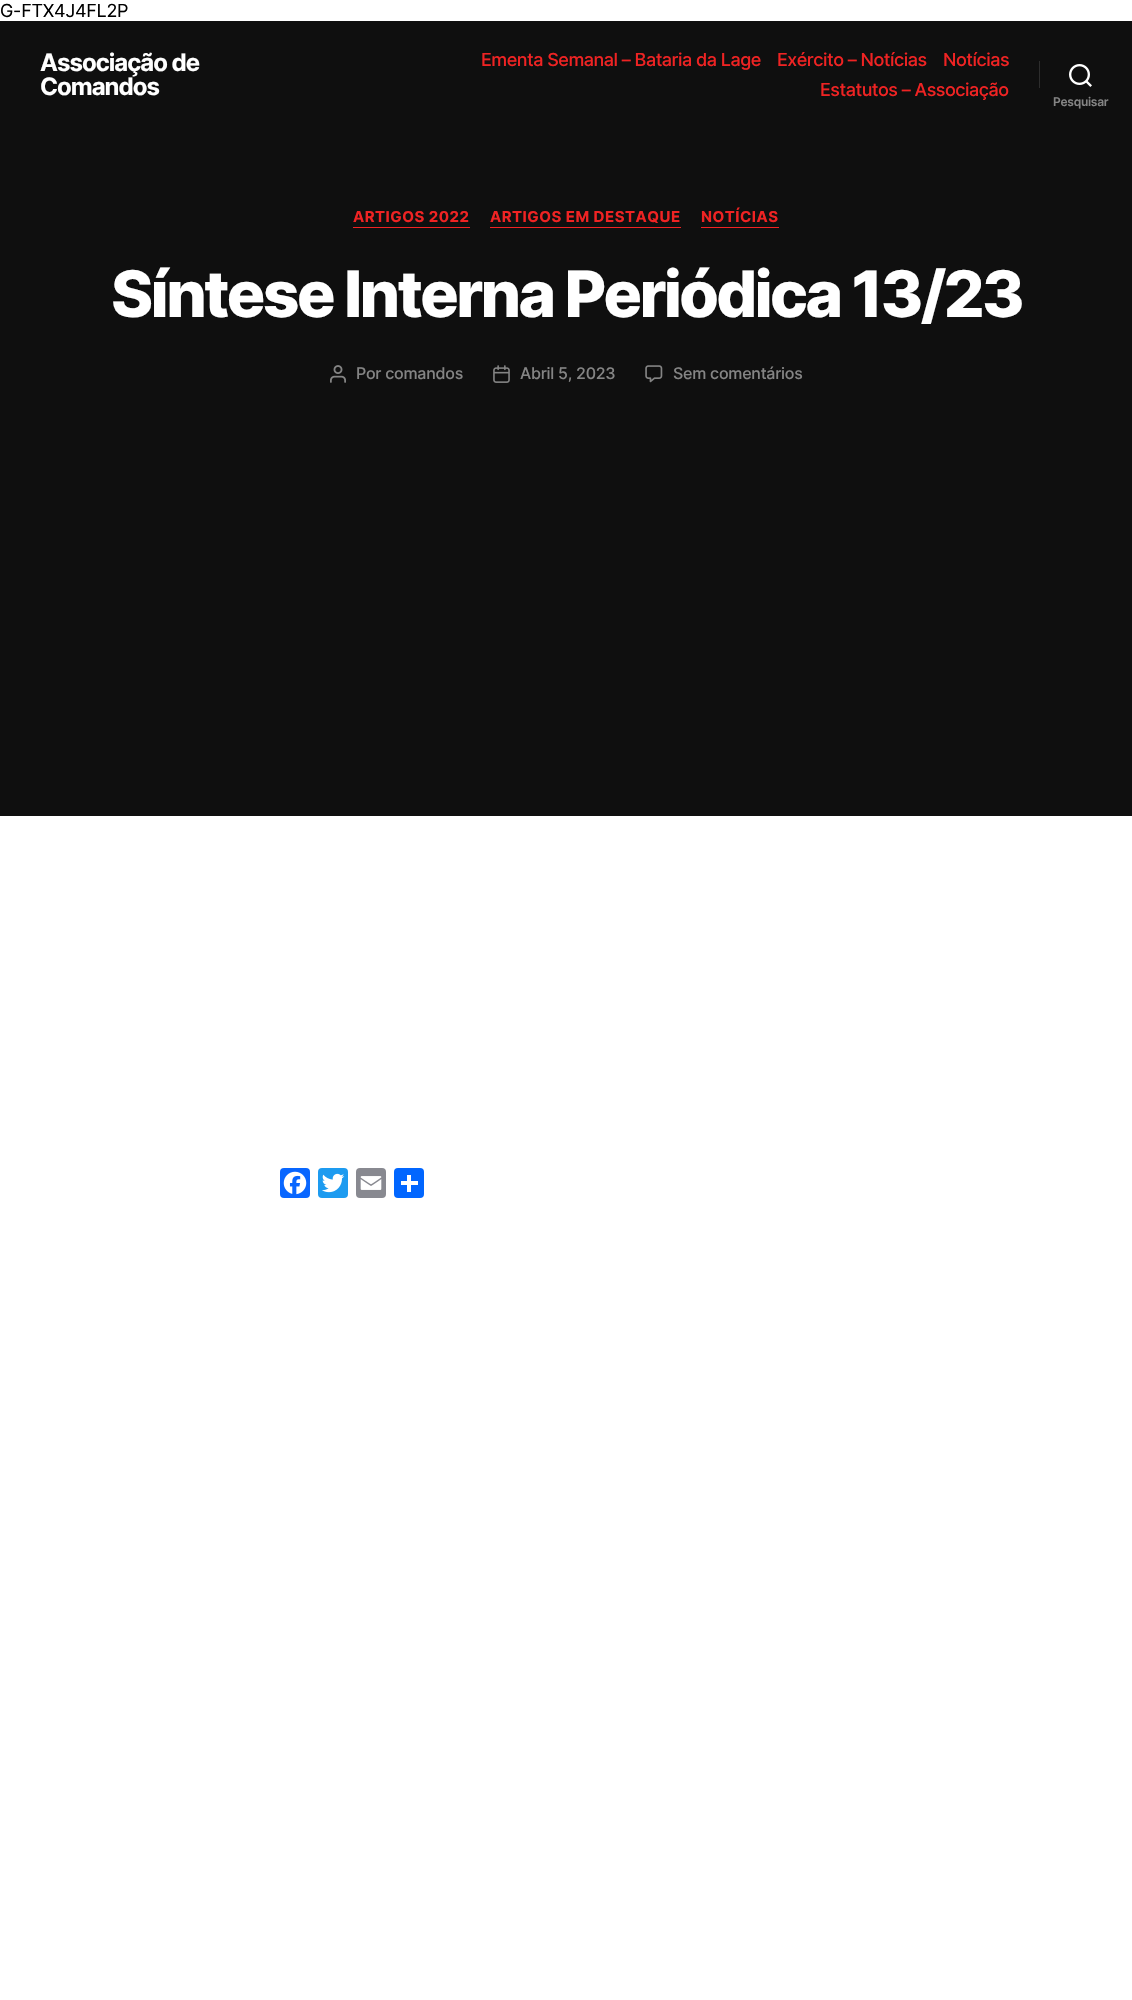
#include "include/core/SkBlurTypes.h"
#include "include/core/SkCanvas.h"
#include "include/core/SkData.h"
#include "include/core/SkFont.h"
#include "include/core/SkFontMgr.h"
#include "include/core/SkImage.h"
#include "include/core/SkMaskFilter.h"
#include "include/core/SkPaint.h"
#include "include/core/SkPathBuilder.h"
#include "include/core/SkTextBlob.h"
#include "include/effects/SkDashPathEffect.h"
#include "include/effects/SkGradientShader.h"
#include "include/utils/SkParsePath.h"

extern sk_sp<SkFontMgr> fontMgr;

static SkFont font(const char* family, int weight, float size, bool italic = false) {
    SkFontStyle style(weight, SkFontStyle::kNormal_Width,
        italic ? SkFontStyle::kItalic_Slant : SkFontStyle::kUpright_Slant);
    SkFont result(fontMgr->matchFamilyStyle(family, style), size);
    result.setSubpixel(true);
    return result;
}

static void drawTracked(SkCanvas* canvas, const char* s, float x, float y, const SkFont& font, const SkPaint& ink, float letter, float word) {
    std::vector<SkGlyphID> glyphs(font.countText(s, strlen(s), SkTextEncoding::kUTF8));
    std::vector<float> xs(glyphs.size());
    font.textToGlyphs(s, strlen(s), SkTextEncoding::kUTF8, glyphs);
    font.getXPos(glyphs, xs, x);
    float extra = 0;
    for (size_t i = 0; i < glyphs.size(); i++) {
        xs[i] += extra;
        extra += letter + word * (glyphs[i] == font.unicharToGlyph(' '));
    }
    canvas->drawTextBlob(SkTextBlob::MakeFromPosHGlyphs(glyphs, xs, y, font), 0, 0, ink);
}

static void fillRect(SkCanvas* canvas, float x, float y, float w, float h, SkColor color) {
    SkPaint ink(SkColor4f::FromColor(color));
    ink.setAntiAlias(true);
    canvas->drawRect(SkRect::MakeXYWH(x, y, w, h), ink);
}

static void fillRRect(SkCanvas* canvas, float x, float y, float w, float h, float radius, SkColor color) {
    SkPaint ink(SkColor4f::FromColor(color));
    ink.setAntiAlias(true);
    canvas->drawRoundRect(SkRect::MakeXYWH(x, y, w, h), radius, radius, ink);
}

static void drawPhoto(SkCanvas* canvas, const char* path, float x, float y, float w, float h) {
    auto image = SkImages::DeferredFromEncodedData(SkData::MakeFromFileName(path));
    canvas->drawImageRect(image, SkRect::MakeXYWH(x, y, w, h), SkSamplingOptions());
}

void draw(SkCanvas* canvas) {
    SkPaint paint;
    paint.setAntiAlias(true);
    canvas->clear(0xFFFFFFFF);
    SkFont font1 = font("Inter", 400, 18);
    paint.setColor(0xFF000000);
    drawTracked(canvas, "G-FTX4J4FL2P", 0, 17, font1, paint, -0.25f, 0);
    fillRect(canvas, 0, 21, 1132, 795, 0xFF0F0F0F);
    SkFont font2 = font("Inter", 700, 24);
    paint.setColor(0xFFFFFFFF);
    drawTracked(canvas, "Associação de", 40, 71, font2, paint, -1, 0);
    drawTracked(canvas, "Comandos", 40, 95, font2, paint, -1, 0);
    SkFont font3 = font("Inter", 500, 18);
    paint.setColor(0xFFEF2323);
    drawTracked(canvas, "Ementa Semanal – Bataria da Lage", 481, 66, font3, paint, -0.5f, 0);
    drawTracked(canvas, "Exército – Notícias", 777, 66, font3, paint, -0.5f, 0);
    drawTracked(canvas, "Notícias", 943, 66, font3, paint, -0.5f, 0);
    drawTracked(canvas, "Estatutos – Associação", 820, 96, font3, paint, -0.5f, 0);
    fillRect(canvas, 1039, 61, 1, 27, 0xFF2D2D2D);
    drawPhoto(canvas, "assets/img1.png", 1069, 64, 23, 23);
    SkFont font4 = font("Inter", 600, 12);
    paint.setColor(0xFF848484);
    drawTracked(canvas, "Pesquisar", 1053, 106, font4, paint, -0.25f, 0);
    fillRect(canvas, 353, 227, 117, 1, 0xFFEF2323);
    SkFont font5 = font("Inter", 700, 15);
    paint.setColor(0xFFEF2323);
    drawTracked(canvas, "ARTIGOS 2022", 353, 222, font5, paint, 0.5f, 0);
    fillRect(canvas, 490, 227, 191, 1, 0xFFEF2323);
    drawTracked(canvas, "ARTIGOS EM DESTAQUE", 490, 222, font5, paint, 0.5f, 0);
    fillRect(canvas, 701, 227, 78, 1, 0xFFEF2323);
    drawTracked(canvas, "NOTÍCIAS", 701, 222, font5, paint, 0.5f, 0);
    SkFont font6 = font("Inter", 800, 64);
    paint.setColor(0xFFFFFFFF);
    drawTracked(canvas, "Síntese Interna Periódica 13/23", 111, 317, font6, paint, -2.65f, 0);
    drawPhoto(canvas, "assets/img2.png", 330, 365, 16, 18);
    SkFont font7 = font("Inter", 500, 16);
    paint.setColor(0xFF848484);
    drawTracked(canvas, "Por comandos", 356, 379, font7, paint, -0.25f, 0);
    drawPhoto(canvas, "assets/img3.png", 493, 365, 17, 18);
    drawTracked(canvas, "Abril 5, 2023", 520, 379, font7, paint, -0.25f, 0);
    drawPhoto(canvas, "assets/img4.png", 645, 365, 18, 18);
    drawTracked(canvas, "Sem comentários", 673, 379, font7, paint, -0.25f, 0);
    fillRRect(canvas, 280, 1168, 30, 30, 4, 0xFF0866FF);
    drawPhoto(canvas, "assets/img5.png", 283, 1171, 24, 24);
    fillRRect(canvas, 318, 1168, 30, 30, 4, 0xFF1D9BF0);
    drawPhoto(canvas, "assets/img6.png", 322, 1173, 23, 20);
    fillRRect(canvas, 356, 1168, 30, 30, 4, 0xFF888990);
    drawPhoto(canvas, "assets/img7.png", 360, 1176, 22, 14);
    fillRRect(canvas, 394, 1168, 30, 30, 4, 0xFF0166FF);
    fillRect(canvas, 407, 1175, 4, 17, 0xFFFFFFFF);
    fillRect(canvas, 401, 1181, 17, 4, 0xFFFFFFFF);
}
